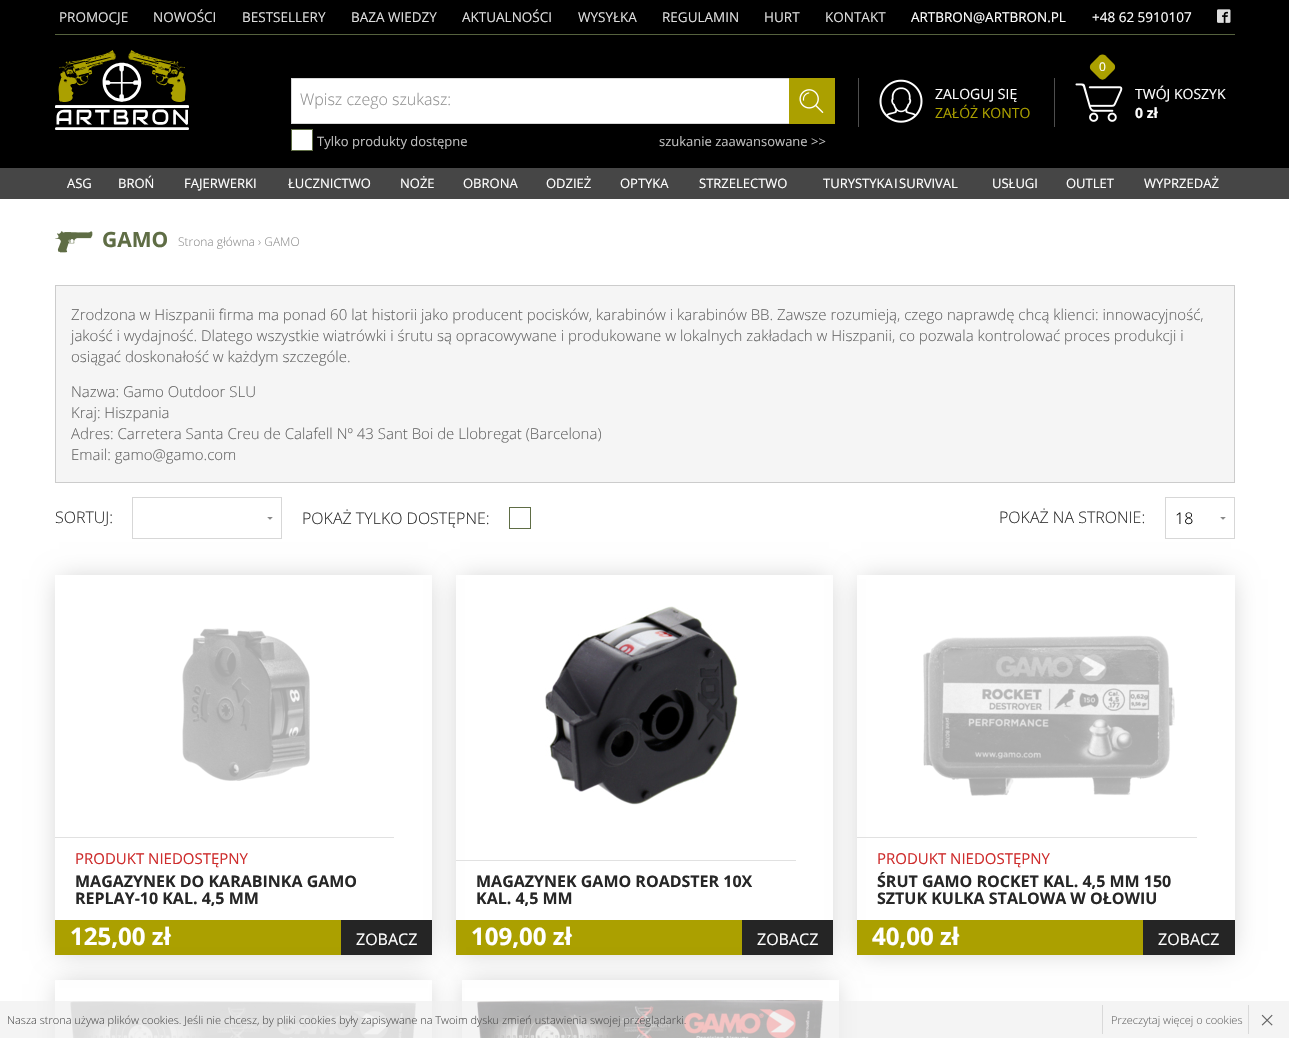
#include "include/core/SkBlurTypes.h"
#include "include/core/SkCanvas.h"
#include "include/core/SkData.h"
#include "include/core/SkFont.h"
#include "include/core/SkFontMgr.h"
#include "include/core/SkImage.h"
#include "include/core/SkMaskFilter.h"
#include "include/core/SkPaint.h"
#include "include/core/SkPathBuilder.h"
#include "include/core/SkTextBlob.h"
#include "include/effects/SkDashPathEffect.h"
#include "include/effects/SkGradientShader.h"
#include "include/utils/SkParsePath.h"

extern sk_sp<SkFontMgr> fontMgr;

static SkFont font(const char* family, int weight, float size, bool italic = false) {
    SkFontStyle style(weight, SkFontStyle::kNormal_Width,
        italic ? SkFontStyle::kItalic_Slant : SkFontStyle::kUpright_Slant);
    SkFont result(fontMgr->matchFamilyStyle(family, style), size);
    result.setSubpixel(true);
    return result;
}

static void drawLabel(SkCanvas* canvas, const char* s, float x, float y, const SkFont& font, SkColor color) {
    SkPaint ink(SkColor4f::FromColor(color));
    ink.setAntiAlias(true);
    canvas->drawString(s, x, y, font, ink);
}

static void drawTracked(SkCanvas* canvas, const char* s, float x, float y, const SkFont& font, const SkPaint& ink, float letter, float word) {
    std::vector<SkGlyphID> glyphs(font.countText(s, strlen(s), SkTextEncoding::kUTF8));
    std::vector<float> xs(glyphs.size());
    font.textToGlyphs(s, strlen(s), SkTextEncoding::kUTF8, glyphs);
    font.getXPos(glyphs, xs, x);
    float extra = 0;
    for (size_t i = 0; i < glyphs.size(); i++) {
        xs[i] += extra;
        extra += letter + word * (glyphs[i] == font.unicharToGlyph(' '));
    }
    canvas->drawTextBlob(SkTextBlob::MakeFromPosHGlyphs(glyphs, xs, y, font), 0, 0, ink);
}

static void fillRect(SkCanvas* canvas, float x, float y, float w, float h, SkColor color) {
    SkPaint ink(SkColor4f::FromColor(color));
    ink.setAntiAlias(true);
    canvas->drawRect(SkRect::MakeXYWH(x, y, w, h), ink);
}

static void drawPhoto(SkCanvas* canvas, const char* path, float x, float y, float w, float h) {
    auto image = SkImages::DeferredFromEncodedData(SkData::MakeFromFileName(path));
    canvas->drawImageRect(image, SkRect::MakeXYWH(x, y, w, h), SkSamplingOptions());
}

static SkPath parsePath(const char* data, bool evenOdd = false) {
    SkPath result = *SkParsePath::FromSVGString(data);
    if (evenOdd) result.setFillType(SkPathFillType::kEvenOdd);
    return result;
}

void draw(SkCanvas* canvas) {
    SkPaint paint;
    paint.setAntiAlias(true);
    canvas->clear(0xFFFFFFFF);
    fillRect(canvas, 0, 0, 1289, 168, 0xFF000000);
    fillRect(canvas, 55, 34, 1180, 1, 0xFF56623E);
    SkFont font1 = font("Open Sans", 400, 13.5f);
    drawLabel(canvas, "PROMOCJE", 59, 22, font1, 0xFFDEDEDE);
    drawLabel(canvas, "NOWOŚCI", 153, 22, font1, 0xFFDEDEDE);
    drawLabel(canvas, "BESTSELLERY", 242, 22, font1, 0xFFDEDEDE);
    drawLabel(canvas, "BAZA WIEDZY", 351, 22, font1, 0xFFDEDEDE);
    drawLabel(canvas, "AKTUALNOŚCI", 462, 22, font1, 0xFFDEDEDE);
    drawLabel(canvas, "WYSYŁKA", 578, 22, font1, 0xFFDEDEDE);
    drawLabel(canvas, "REGULAMIN", 662, 22, font1, 0xFFDEDEDE);
    drawLabel(canvas, "HURT", 764, 22, font1, 0xFFDEDEDE);
    drawLabel(canvas, "KONTAKT", 825, 22, font1, 0xFFDEDEDE);
    drawLabel(canvas, "ARTBRON@ARTBRON.PL", 911, 22, font1, 0xFFFFFFFF);
    drawLabel(canvas, "+48 62 5910107", 1092, 22, font1, 0xFFFFFFFF);
    drawPhoto(canvas, "assets/img1.png", 1217, 9, 14, 14);
    fillRect(canvas, 0, 168, 1289, 31, 0xFF464646);
    SkFont font2 = font("Open Sans", 400, 13);
    drawLabel(canvas, "ASG", 67, 188, font2, 0xFFFFFFFF);
    drawLabel(canvas, "BROŃ", 118, 188, font2, 0xFFFFFFFF);
    drawLabel(canvas, "FAJERWERKI", 184, 188, font2, 0xFFFFFFFF);
    drawLabel(canvas, "ŁUCZNICTWO", 288, 188, font2, 0xFFFFFFFF);
    drawLabel(canvas, "NOŻE", 400, 188, font2, 0xFFFFFFFF);
    drawLabel(canvas, "OBRONA", 463, 188, font2, 0xFFFFFFFF);
    drawLabel(canvas, "ODZIEŻ", 546, 188, font2, 0xFFFFFFFF);
    drawLabel(canvas, "OPTYKA", 620, 188, font2, 0xFFFFFFFF);
    drawLabel(canvas, "STRZELECTWO", 699, 188, font2, 0xFFFFFFFF);
    paint.setColor(0xFFFFFFFF);
    drawTracked(canvas, "TURYSTYKA I SURVIVAL", 823, 188, font2, paint, 0, -2);
    drawLabel(canvas, "USŁUGI", 992, 188, font2, 0xFFFFFFFF);
    drawLabel(canvas, "OUTLET", 1066, 188, font2, 0xFFFFFFFF);
    drawLabel(canvas, "WYPRZEDAŻ", 1144, 188, font2, 0xFFFFFFFF);
    drawPhoto(canvas, "assets/img2.png", 55, 50, 134, 80);
    fillRect(canvas, 292, 79, 497, 44, 0xFFFFFFFF);
    paint.setStroke(true);
    paint.setStrokeWidth(1);
    paint.setColor(0xFFD7D7D7);
    canvas->drawRect(SkRect::MakeXYWH(291.5f, 78.5f, 534, 45), paint);
    paint.setStroke(false);
    paint.setColor(0xFFABA000);
    canvas->drawRect(SkRect::MakeXYWH(789.5f, 78.5f, 45, 45), paint);
    paint.setStroke(true);
    canvas->drawRect(SkRect::MakeXYWH(789.5f, 78.5f, 45, 45), paint);
    drawPhoto(canvas, "assets/img3.png", 799, 89, 25, 24);
    SkFont font3 = font("Open Sans", 300, 16);
    drawLabel(canvas, "Wpisz czego szukasz:", 300, 105, font3, 0xFF919191);
    paint.setStroke(false);
    paint.setColor(0xFFFFFFFF);
    canvas->drawRect(SkRect::MakeXYWH(291.5f, 129.5f, 21, 21), paint);
    paint.setStroke(true);
    paint.setColor(0xFF5F6D45);
    canvas->drawRect(SkRect::MakeXYWH(291.5f, 129.5f, 21, 21), paint);
    drawLabel(canvas, "Tylko produkty dostępne", 317, 146, font2, 0xFFBEBEBE);
    drawLabel(canvas, "szukanie zaawansowane >>", 659, 146, font2, 0xFFBEBEBE);
    fillRect(canvas, 858, 78, 1, 49, 0xFF4E4E4E);
    drawPhoto(canvas, "assets/img4.png", 879, 79, 44, 44);
    SkFont font4 = font("Open Sans", 400, 14);
    drawLabel(canvas, "ZALOGUJ SIĘ", 935, 99, font4, 0xFFFFFFFF);
    drawLabel(canvas, "ZAŁÓŻ KONTO", 935, 118, font4, 0xFFABA000);
    fillRect(canvas, 1054, 78, 1, 49, 0xFF4E4E4E);
    drawPhoto(canvas, "assets/img5.png", 1075, 83, 48, 39);
    paint.setStroke(false);
    paint.setColor(0xFFABA000);
    canvas->drawPath(parsePath("M1105.5 55.5L1114 64C1115.5 65.5 1115.5 68.5 1114 70L1105.5 78.5C1104 80 1101 80 1099.5 78.5L1091 70C1089.5 68.5 1089.5 65.5 1091 64L1099.5 55.5C1101 54 1104 54 1105.5 55.5Z"), paint);
    SkFont font5 = font("Open Sans", 400, 12);
    drawLabel(canvas, "0", 1099, 71, font5, 0xFFFFFFFF);
    drawLabel(canvas, "TWÓJ KOSZYK", 1135, 99, font4, 0xFFFFFFFF);
    SkFont font6 = font("Open Sans", 700, 14);
    drawLabel(canvas, "0 zł", 1135, 118, font6, 0xFFFFFFFF);
    drawPhoto(canvas, "assets/img6.png", 55, 231, 38, 22);
    SkFont font7 = font("Open Sans", 700, 21);
    drawLabel(canvas, "GAMO", 102, 247, font7, 0xFF5F6D45);
    SkFont font8 = font("Open Sans", 300, 12);
    drawLabel(canvas, "Strona główna › GAMO", 178, 246, font8, 0xFF919191);
    paint.setColor(0xFFF5F5F5);
    canvas->drawRect(SkRect::MakeXYWH(55.5f, 285.5f, 1179, 197), paint);
    paint.setStroke(true);
    paint.setColor(0xFFCCCCCC);
    canvas->drawRect(SkRect::MakeXYWH(55.5f, 285.5f, 1179, 197), paint);
    SkFont font9 = font("Open Sans", 300, 15);
    drawLabel(canvas, "Zrodzona w Hiszpanii firma ma ponad 60 lat historii jako producent pocisków, karabinów i karabinów BB. Zawsze rozumieją, czego naprawdę chcą klienci: innowacyjność,", 71, 320, font9, 0xFF666666);
    drawLabel(canvas, "jakość i wydajność. Dlatego wszystkie wiatrówki i śrutu są opracowywane i produkowane w lokalnych zakładach w Hiszpanii, co pozwala kontrolować proces produkcji i", 71, 341, font9, 0xFF666666);
    drawLabel(canvas, "osiągać doskonałość w każdym szczególe.", 71, 362, font9, 0xFF666666);
    drawLabel(canvas, "Nazwa: Gamo Outdoor SLU", 71, 397, font9, 0xFF666666);
    drawLabel(canvas, "Kraj: Hiszpania", 71, 418, font9, 0xFF666666);
    drawLabel(canvas, "Adres: Carretera Santa Creu de Calafell Nº 43 Sant Boi de Llobregat (Barcelona)", 71, 439, font9, 0xFF666666);
    drawLabel(canvas, "Email: gamo@gamo.com", 71, 460, font9, 0xFF666666);
    drawLabel(canvas, "SORTUJ:", 55, 523, font3, 0xFF303030);
    drawPhoto(canvas, "assets/img7.png", 267, 517, 6, 3);
    paint.setColor(0xFFD7D7D7);
    canvas->drawRect(SkRect::MakeXYWH(132.5f, 497.5f, 149, 41), paint);
    drawLabel(canvas, "POKAŻ TYLKO DOSTĘPNE:", 302, 524, font3, 0xFF303030);
    paint.setColor(0xFF5F6D45);
    canvas->drawRect(SkRect::MakeXYWH(509.5f, 507.5f, 21, 21), paint);
    drawLabel(canvas, "POKAŻ NA STRONIE:", 999, 523, font3, 0xFF303030);
    drawPhoto(canvas, "assets/img7.png", 1220, 517, 6, 3);
    paint.setColor(0xFFD7D7D7);
    canvas->drawRect(SkRect::MakeXYWH(1165.5f, 497.5f, 69, 41), paint);
    drawLabel(canvas, "18", 1175, 524, font3, 0xFF000000);
    canvas->save();
    canvas->clipPath(parsePath("M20 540H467V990H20ZM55 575H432V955H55Z", true), true);
    paint.setStroke(false);
    paint.setColor(0x33000000);
    paint.setMaskFilter(SkMaskFilter::MakeBlur(kNormal_SkBlurStyle, 12.5f));
    canvas->drawRect(SkRect::MakeXYWH(59, 579, 369, 372), paint);
    paint.setMaskFilter(nullptr);
    canvas->restore();
    drawPhoto(canvas, "assets/img8.png", 182, 628, 128, 153);
    fillRect(canvas, 55, 920, 286, 35, 0xFFABA000);
    fillRect(canvas, 55, 837, 339, 1, 0xFFE1E1E1);
    SkFont font10 = font("Open Sans", 400, 15);
    drawLabel(canvas, "PRODUKT NIEDOSTĘPNY", 75, 864, font10, 0xFFCE2C2C);
    SkFont font11 = font("Open Sans", 700, 16);
    drawLabel(canvas, "MAGAZYNEK DO KARABINKA GAMO", 75, 887, font11, 0xFF272727);
    drawLabel(canvas, "REPLAY-10 KAL. 4,5 MM", 75, 904, font11, 0xFF272727);
    SkFont font12 = font("Open Sans", 700, 24);
    drawLabel(canvas, "125,00 zł", 70, 945, font12, 0xFFFFFFFF);
    fillRect(canvas, 341, 920, 91, 35, 0xFF252525);
    SkFont font13 = font("Open Sans", 400, 16);
    drawLabel(canvas, "ZOBACZ", 356, 945, font13, 0xFFFFFFFF);
    canvas->save();
    canvas->clipPath(parsePath("M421 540H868V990H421ZM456 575H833V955H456Z", true), true);
    paint.setMaskFilter(SkMaskFilter::MakeBlur(kNormal_SkBlurStyle, 12.5f));
    canvas->drawRect(SkRect::MakeXYWH(460, 579, 369, 372), paint);
    paint.setMaskFilter(nullptr);
    canvas->restore();
    drawPhoto(canvas, "assets/img9.png", 545, 606, 193, 199);
    fillRect(canvas, 456, 920, 286, 35, 0xFFABA000);
    fillRect(canvas, 456, 860, 340, 1, 0xFFE1E1E1);
    drawLabel(canvas, "MAGAZYNEK GAMO ROADSTER 10X", 476, 887, font11, 0xFF272727);
    drawLabel(canvas, "KAL. 4,5 MM", 476, 904, font11, 0xFF272727);
    drawLabel(canvas, "109,00 zł", 471, 945, font12, 0xFFFFFFFF);
    fillRect(canvas, 742, 920, 91, 35, 0xFF252525);
    drawLabel(canvas, "ZOBACZ", 757, 945, font13, 0xFFFFFFFF);
    canvas->save();
    canvas->clipPath(parsePath("M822 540H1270V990H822ZM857 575H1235V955H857Z", true), true);
    paint.setMaskFilter(SkMaskFilter::MakeBlur(kNormal_SkBlurStyle, 12.5f));
    canvas->drawRect(SkRect::MakeXYWH(861, 579, 370, 372), paint);
    paint.setMaskFilter(nullptr);
    canvas->restore();
    drawPhoto(canvas, "assets/img10.png", 923, 635, 252, 161);
    fillRect(canvas, 857, 920, 286, 35, 0xFFABA000);
    fillRect(canvas, 857, 837, 340, 1, 0xFFE1E1E1);
    drawLabel(canvas, "PRODUKT NIEDOSTĘPNY", 877, 864, font10, 0xFFCE2C2C);
    drawLabel(canvas, "ŚRUT GAMO ROCKET KAL. 4,5 MM 150", 877, 887, font11, 0xFF272727);
    drawLabel(canvas, "SZTUK KULKA STALOWA W OŁOWIU", 877, 904, font11, 0xFF272727);
    drawLabel(canvas, "40,00 zł", 872, 945, font12, 0xFFFFFFFF);
    fillRect(canvas, 1143, 920, 92, 35, 0xFF252525);
    drawLabel(canvas, "ZOBACZ", 1158, 945, font13, 0xFFFFFFFF);
    canvas->save();
    canvas->clipPath(parsePath("M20 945H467V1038H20ZM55 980H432V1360H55Z", true), true);
    paint.setMaskFilter(SkMaskFilter::MakeBlur(kNormal_SkBlurStyle, 12.5f));
    canvas->drawRect(SkRect::MakeXYWH(59, 984, 369, 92), paint);
    paint.setMaskFilter(nullptr);
    canvas->restore();
    drawPhoto(canvas, "assets/img11.png", 70, 1001, 346, 37);
    canvas->save();
    canvas->clipPath(parsePath("M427 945H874V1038H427ZM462 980H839V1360H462Z", true), true);
    paint.setMaskFilter(SkMaskFilter::MakeBlur(kNormal_SkBlurStyle, 12.5f));
    canvas->drawRect(SkRect::MakeXYWH(466, 984, 369, 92), paint);
    paint.setMaskFilter(nullptr);
    canvas->restore();
    drawPhoto(canvas, "assets/img12.png", 476, 1000, 348, 38);
    fillRect(canvas, 0, 1001, 1289, 37, 0xB3F0F0F0);
    SkFont font14 = font("Open Sans", 300, 11);
    drawLabel(canvas, "Nasza strona używa plików cookies. Jeśli nie chcesz, by pliki cookies były zapisywane na Twoim dysku zmień ustawienia swojej przeglądarki.", 7, 1024, font14, 0xFF505050);
    fillRect(canvas, 1102, 1005, 1, 29, 0xFFD9D9D9);
    drawLabel(canvas, "Przeczytaj więcej o cookies", 1111, 1024, font14, 0xFF666666);
    fillRect(canvas, 1248, 1005, 1, 29, 0xFFD9D9D9);
    SkFont font15 = font("Open Sans", 300, 25);
    drawLabel(canvas, "×", 1260, 1029, font15, 0xFF666666);
}
